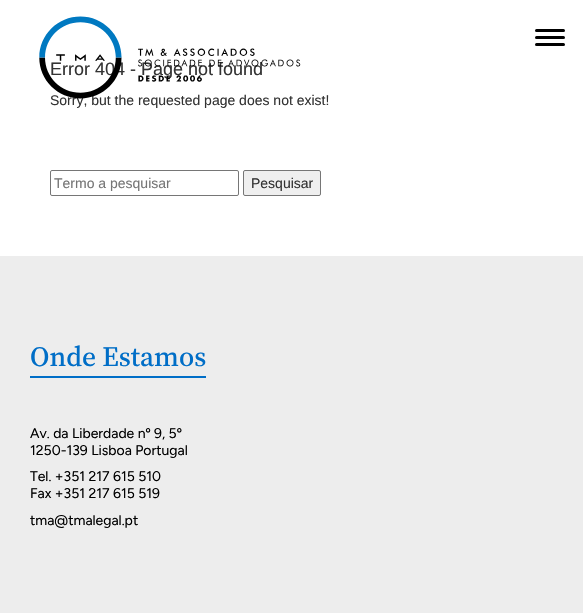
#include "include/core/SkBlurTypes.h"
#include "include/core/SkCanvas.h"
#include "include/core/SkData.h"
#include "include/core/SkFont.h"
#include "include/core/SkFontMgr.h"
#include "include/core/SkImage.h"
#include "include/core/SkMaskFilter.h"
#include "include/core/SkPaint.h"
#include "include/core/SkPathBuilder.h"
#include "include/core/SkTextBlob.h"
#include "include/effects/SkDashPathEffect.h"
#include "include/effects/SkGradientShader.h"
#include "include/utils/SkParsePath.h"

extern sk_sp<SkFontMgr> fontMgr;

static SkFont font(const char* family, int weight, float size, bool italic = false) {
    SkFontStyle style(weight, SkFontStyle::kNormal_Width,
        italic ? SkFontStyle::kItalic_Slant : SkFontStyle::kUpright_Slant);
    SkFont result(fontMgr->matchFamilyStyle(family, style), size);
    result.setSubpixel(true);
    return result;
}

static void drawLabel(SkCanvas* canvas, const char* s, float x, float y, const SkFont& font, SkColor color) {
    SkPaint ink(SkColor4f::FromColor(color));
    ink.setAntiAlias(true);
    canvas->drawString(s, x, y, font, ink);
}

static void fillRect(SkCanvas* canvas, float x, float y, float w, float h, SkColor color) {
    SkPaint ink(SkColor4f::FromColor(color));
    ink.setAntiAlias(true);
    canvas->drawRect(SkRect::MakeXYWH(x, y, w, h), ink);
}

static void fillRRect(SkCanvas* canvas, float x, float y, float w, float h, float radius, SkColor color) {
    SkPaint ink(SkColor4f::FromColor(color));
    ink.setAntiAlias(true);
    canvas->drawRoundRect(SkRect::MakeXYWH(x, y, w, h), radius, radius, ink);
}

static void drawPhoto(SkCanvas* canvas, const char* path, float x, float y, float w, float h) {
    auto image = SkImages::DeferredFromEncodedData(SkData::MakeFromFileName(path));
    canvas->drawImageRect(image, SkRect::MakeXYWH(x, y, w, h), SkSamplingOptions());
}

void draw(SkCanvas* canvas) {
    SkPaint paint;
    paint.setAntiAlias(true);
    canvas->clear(0xFFFFFFFF);
    SkFont font1 = font("Liberation Sans", 400, 18);
    drawLabel(canvas, "Error 404 - Page not found", 50, 75, font1, 0xFF333333);
    SkFont font2 = font("Liberation Sans", 400, 14);
    drawLabel(canvas, "Sorry, but the requested page does not exist!", 50, 105, font2, 0xFF333333);
    drawPhoto(canvas, "assets/img1.png", 39, 16, 262, 83);
    fillRRect(canvas, 535, 29, 30, 3, 1.5f, 0xFF000000);
    fillRRect(canvas, 535, 36, 30, 3, 1.5f, 0xFF000000);
    fillRRect(canvas, 535, 43, 30, 3, 1.5f, 0xFF000000);
    paint.setStroke(true);
    paint.setStrokeWidth(1);
    paint.setColor(0xFF767676);
    canvas->drawRoundRect(SkRect::MakeXYWH(50.5f, 170.5f, 188, 25), 1.5f, 1.5f, paint);
    drawLabel(canvas, "Termo a pesquisar", 54, 188, font2, 0xFF757575);
    paint.setStroke(false);
    paint.setColor(0xFFEFEFEF);
    canvas->drawRoundRect(SkRect::MakeXYWH(243.5f, 170.5f, 77, 25), 1.5f, 1.5f, paint);
    paint.setStroke(true);
    paint.setColor(0xFF767676);
    canvas->drawRoundRect(SkRect::MakeXYWH(243.5f, 170.5f, 77, 25), 1.5f, 1.5f, paint);
    drawLabel(canvas, "Pesquisar", 251, 188, font2, 0xFF333333);
    fillRect(canvas, 0, 256, 583, 357, 0xFFEDEDED);
    SkFont font3 = font("Source Serif 4", 500, 28);
    drawLabel(canvas, "Onde Estamos", 30, 366, font3, 0xFF006EC7);
    fillRect(canvas, 30, 376, 176, 2, 0xFF006EC7);
    SkFont font4 = font("Figtree", 400, 14);
    drawLabel(canvas, "Av. da Liberdade nº 9, 5º", 30, 438, font4, 0xFF000000);
    drawLabel(canvas, "1250-139 Lisboa Portugal", 30, 455, font4, 0xFF000000);
    drawLabel(canvas, "Tel. +351 217 615 510", 30, 481, font4, 0xFF000000);
    drawLabel(canvas, "Fax +351 217 615 519", 30, 498, font4, 0xFF000000);
    drawLabel(canvas, "tma@tmalegal.pt", 30, 525, font4, 0xFF000000);
}
